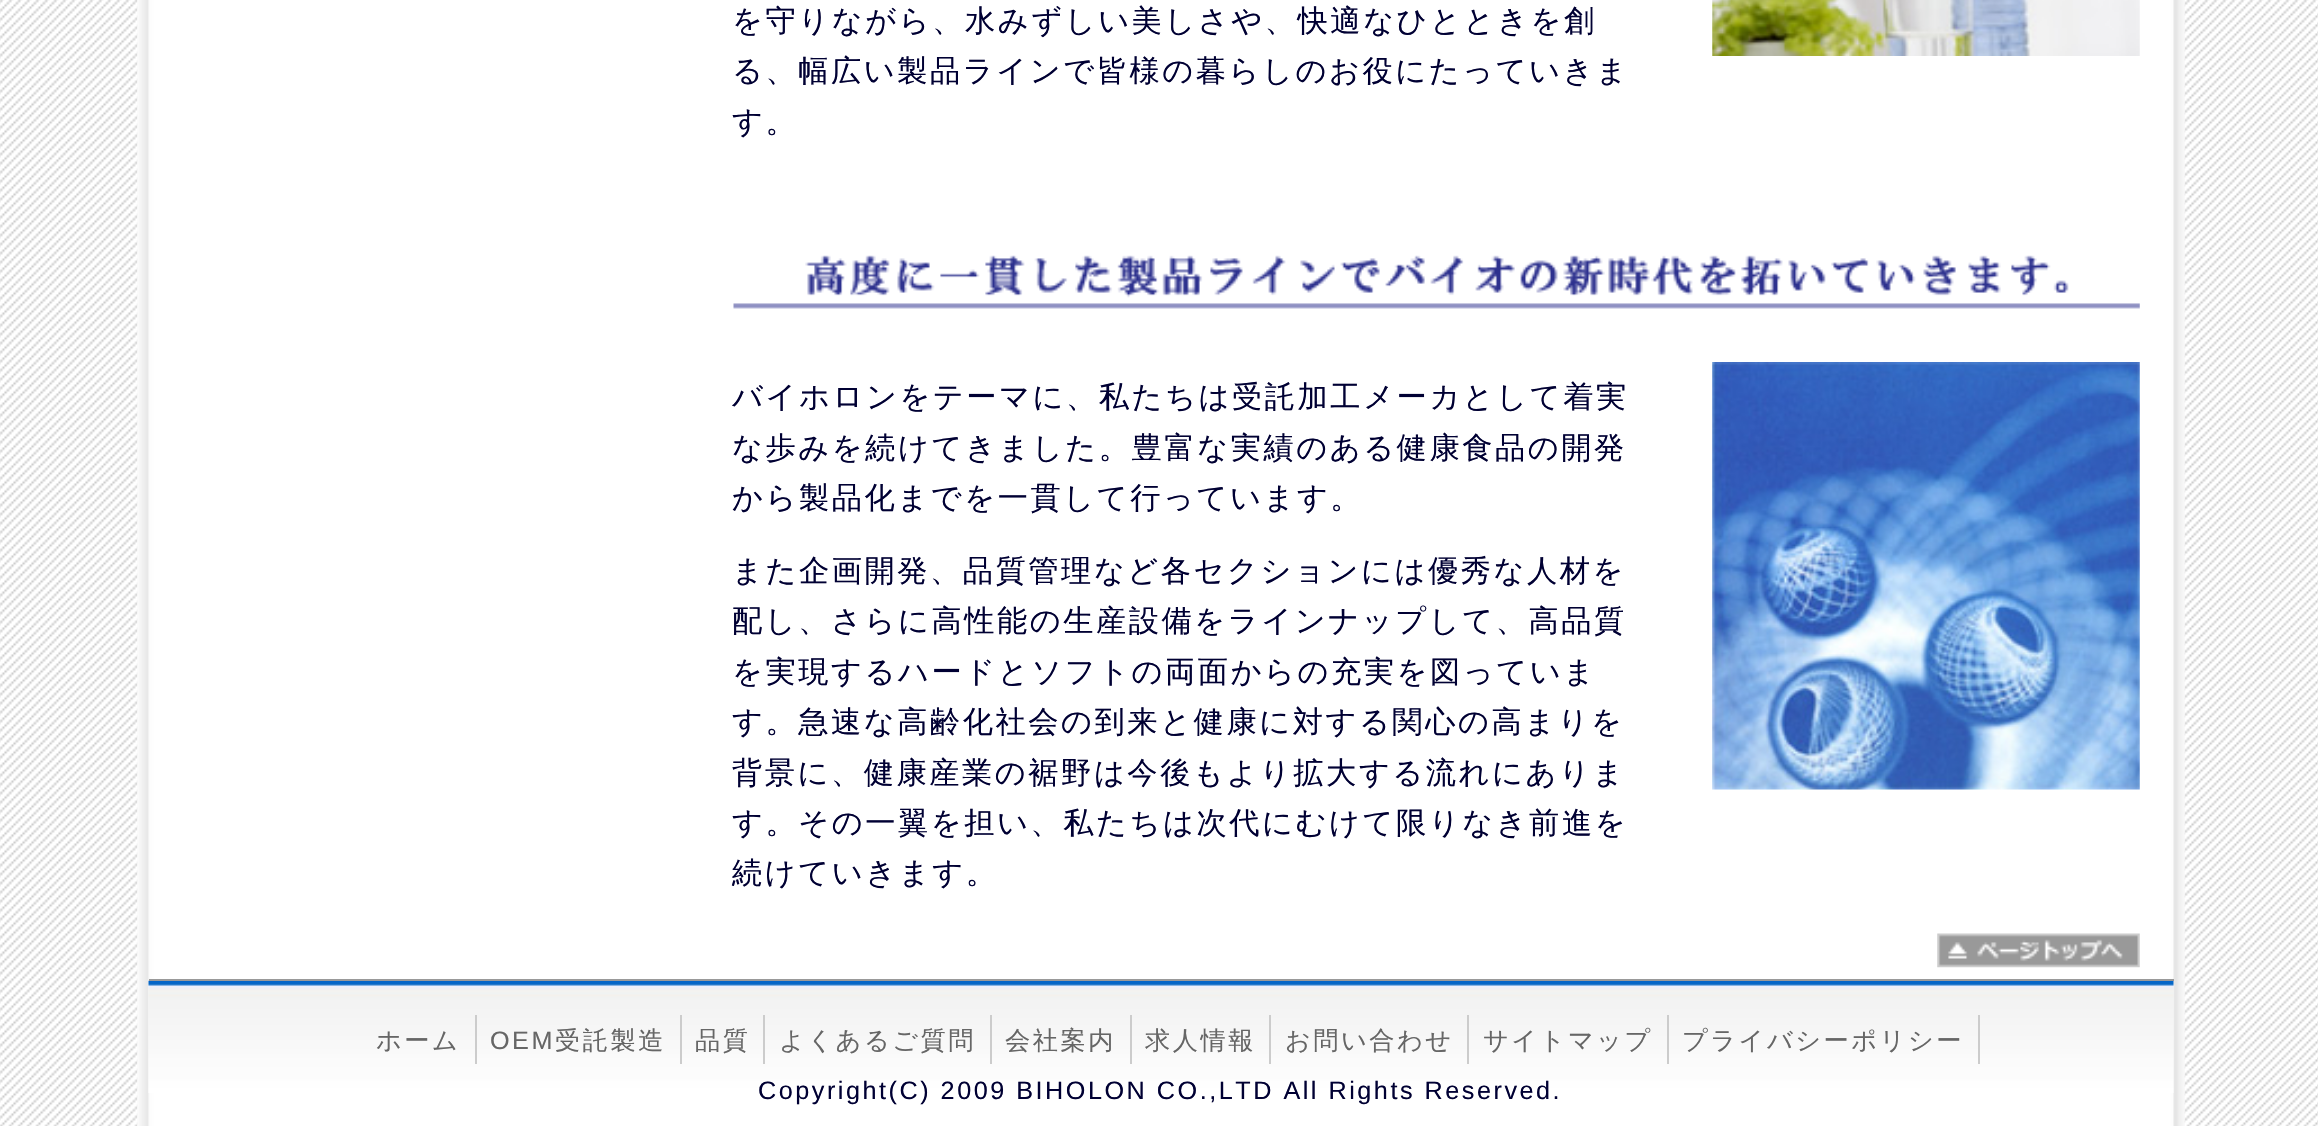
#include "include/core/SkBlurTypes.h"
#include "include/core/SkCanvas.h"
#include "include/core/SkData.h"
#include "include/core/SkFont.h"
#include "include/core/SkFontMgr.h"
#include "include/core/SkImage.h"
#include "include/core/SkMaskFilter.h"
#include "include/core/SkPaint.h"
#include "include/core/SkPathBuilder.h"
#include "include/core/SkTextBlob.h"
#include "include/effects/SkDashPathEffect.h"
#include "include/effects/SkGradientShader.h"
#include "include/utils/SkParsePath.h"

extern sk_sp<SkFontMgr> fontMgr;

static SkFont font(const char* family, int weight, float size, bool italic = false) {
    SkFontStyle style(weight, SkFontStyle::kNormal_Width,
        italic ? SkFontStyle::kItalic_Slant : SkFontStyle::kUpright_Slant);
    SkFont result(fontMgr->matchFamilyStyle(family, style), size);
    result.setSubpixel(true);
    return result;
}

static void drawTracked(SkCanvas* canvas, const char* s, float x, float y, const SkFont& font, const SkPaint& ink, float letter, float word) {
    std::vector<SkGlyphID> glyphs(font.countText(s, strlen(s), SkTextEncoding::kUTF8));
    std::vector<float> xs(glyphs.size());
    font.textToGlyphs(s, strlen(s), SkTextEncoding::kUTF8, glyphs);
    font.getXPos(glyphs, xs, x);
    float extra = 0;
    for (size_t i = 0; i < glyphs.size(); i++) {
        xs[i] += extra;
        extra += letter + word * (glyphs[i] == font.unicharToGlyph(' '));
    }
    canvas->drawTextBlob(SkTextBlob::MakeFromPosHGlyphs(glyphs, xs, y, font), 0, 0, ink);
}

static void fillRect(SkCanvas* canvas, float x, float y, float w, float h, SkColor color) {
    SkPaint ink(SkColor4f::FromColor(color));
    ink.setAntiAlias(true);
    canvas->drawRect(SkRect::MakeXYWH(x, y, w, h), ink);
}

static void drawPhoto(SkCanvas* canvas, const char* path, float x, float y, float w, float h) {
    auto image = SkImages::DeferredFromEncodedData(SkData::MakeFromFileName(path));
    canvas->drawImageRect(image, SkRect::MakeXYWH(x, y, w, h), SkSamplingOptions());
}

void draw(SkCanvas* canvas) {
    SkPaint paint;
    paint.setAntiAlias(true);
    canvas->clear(0xFFCCCCCC);
    drawPhoto(canvas, "assets/img1.png", 0, 0, 2318, 1126);
    drawPhoto(canvas, "assets/img2.png", 137, 0, 2048, 1126);
    SkFont font1 = font("WenQuanYi Zen Hei", 500, 30.25f);
    paint.setColor(0xFF000033);
    drawTracked(canvas, "を守りながら、水みずしい美しさや、快適なひとときを創", 732, 31, font1, paint, 2.52f, 0);
    drawTracked(canvas, "る、幅広い製品ラインで皆様の暮らしのお役にたっていきま", 732, 81, font1, paint, 2.52f, 0);
    drawTracked(canvas, "す。", 732, 132, font1, paint, 2.52f, 0);
    drawPhoto(canvas, "assets/img3.png", 1712, 0, 428, 56);
    drawPhoto(canvas, "assets/img4.png", 733, 255, 1407, 54);
    drawTracked(canvas, "バイホロンをテーマに、私たちは受託加工メーカとして着実", 732, 407, font1, paint, 2.52f, 0);
    drawTracked(canvas, "な歩みを続けてきました。豊富な実績のある健康食品の開発", 732, 458, font1, paint, 2.52f, 0);
    drawTracked(canvas, "から製品化までを一貫して行っています。", 732, 508, font1, paint, 2.52f, 0);
    drawTracked(canvas, "また企画開発、品質管理など各セクションには優秀な人材を", 732, 581, font1, paint, 2.52f, 0);
    drawTracked(canvas, "配し、さらに高性能の生産設備をラインナップして、高品質", 732, 631, font1, paint, 2.52f, 0);
    drawTracked(canvas, "を実現するハードとソフトの両面からの充実を図っていま", 732, 682, font1, paint, 2.52f, 0);
    drawTracked(canvas, "す。急速な高齢化社会の到来と健康に対する関心の高まりを", 732, 732, font1, paint, 2.52f, 0);
    drawTracked(canvas, "背景に、健康産業の裾野は今後もより拡大する流れにありま", 732, 783, font1, paint, 2.52f, 0);
    drawTracked(canvas, "す。その一翼を担い、私たちは次代にむけて限りなき前進を", 732, 833, font1, paint, 2.52f, 0);
    drawTracked(canvas, "続けていきます。", 732, 883, font1, paint, 2.52f, 0);
    drawPhoto(canvas, "assets/img5.png", 1712, 362, 428, 428);
    drawPhoto(canvas, "assets/img6.png", 1937, 933, 203, 35);
    drawPhoto(canvas, "assets/img7.png", 148, 980, 2026, 113);
    fillRect(canvas, 149, 979, 2025, 2, 0xFF999999);
    fillRect(canvas, 475, 1015, 2, 49, 0xFFCCCCCC);
    SkFont font2 = font("WenQuanYi Zen Hei", 500, 25.2f);
    paint.setColor(0xFF666666);
    drawTracked(canvas, "ホーム", 376, 1049, font2, paint, 2.52f, 0);
    fillRect(canvas, 680, 1015, 2, 49, 0xFFCCCCCC);
    SkFont font3 = font("Liberation Sans", 400, 25.2f);
    drawTracked(canvas, "OEM", 490, 1049, font3, paint, 2.52f, 0);
    drawTracked(canvas, "受託製造", 555, 1049, font2, paint, 2.52f, 0);
    fillRect(canvas, 763, 1015, 2, 49, 0xFFCCCCCC);
    drawTracked(canvas, "品質", 695, 1049, font2, paint, 2.52f, 0);
    fillRect(canvas, 990, 1015, 2, 49, 0xFFCCCCCC);
    drawTracked(canvas, "よくあるご質問", 779, 1049, font2, paint, 2.52f, 0);
    fillRect(canvas, 1130, 1015, 2, 49, 0xFFCCCCCC);
    drawTracked(canvas, "会社案内", 1005, 1049, font2, paint, 2.52f, 0);
    fillRect(canvas, 1269, 1015, 2, 49, 0xFFCCCCCC);
    drawTracked(canvas, "求人情報", 1145, 1049, font2, paint, 2.52f, 0);
    fillRect(canvas, 1467, 1015, 2, 49, 0xFFCCCCCC);
    drawTracked(canvas, "お問い合わせ", 1285, 1049, font2, paint, 2.52f, 0);
    fillRect(canvas, 1667, 1015, 2, 49, 0xFFCCCCCC);
    drawTracked(canvas, "サイトマップ", 1483, 1049, font2, paint, 2.52f, 0);
    fillRect(canvas, 1978, 1015, 2, 49, 0xFFCCCCCC);
    drawTracked(canvas, "プライバシーポリシー", 1682, 1049, font2, paint, 2.52f, 0);
    paint.setColor(0xFF000033);
    drawTracked(canvas, "Copyright(C) 2009 BIHOLON CO.,LTD All Rights Reserved.", 758, 1099, font3, paint, 2.52f, 0);
}
